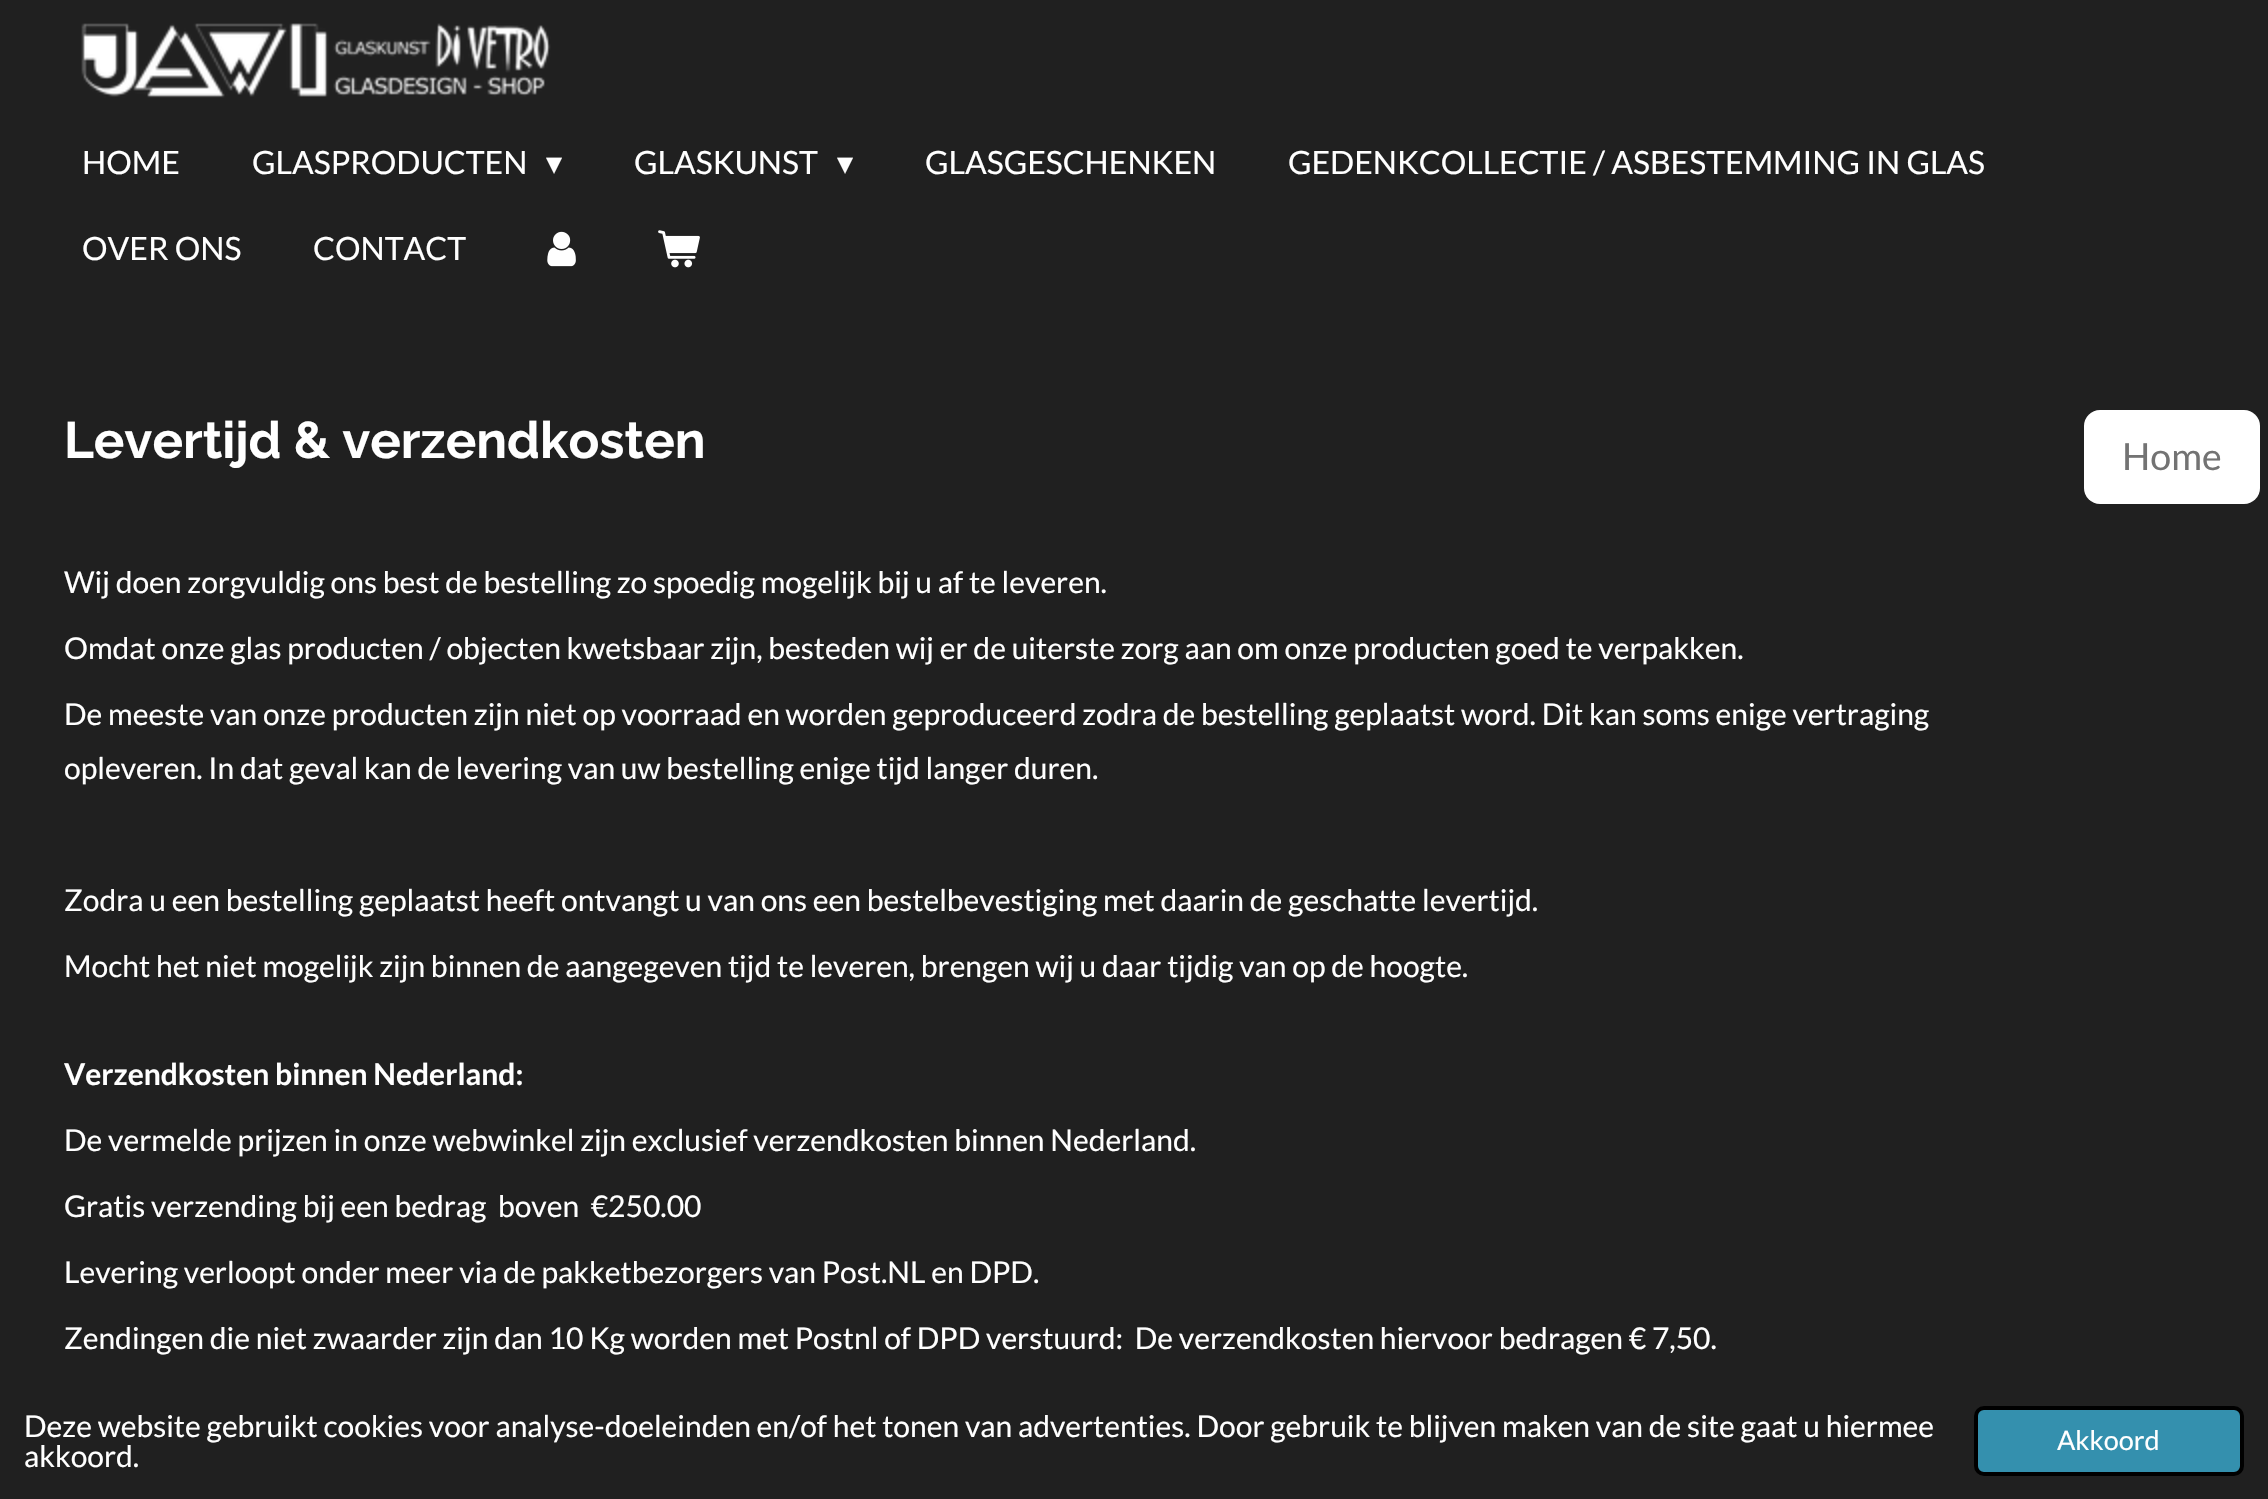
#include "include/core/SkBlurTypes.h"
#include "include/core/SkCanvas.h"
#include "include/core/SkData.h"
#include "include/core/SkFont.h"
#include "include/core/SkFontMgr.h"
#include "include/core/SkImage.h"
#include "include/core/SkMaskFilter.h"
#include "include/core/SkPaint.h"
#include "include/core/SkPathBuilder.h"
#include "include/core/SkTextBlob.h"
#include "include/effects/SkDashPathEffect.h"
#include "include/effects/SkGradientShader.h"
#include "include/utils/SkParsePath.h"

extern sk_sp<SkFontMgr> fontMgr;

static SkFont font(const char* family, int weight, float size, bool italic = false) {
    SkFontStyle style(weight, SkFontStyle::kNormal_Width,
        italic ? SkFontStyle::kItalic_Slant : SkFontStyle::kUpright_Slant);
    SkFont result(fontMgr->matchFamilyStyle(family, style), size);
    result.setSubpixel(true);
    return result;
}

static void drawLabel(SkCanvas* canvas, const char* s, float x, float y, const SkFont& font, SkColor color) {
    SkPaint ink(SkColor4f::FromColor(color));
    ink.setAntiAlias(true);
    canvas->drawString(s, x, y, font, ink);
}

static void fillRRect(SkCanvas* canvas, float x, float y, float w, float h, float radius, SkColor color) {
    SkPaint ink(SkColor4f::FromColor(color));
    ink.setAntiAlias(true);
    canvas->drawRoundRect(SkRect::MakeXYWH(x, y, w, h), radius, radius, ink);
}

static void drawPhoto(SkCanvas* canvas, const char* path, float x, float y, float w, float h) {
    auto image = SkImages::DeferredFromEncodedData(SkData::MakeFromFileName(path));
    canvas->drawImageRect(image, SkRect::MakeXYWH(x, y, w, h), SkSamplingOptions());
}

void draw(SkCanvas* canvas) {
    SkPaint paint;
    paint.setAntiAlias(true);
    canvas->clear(0xFF202020);
    drawPhoto(canvas, "assets/img1.png", 81, 23, 470, 75);
    SkFont font1 = font("Lato", 400, 32);
    drawLabel(canvas, "HOME", 82, 174, font1, 0xFFFFFFFF);
    drawLabel(canvas, "GLASPRODUCTEN", 252, 174, font1, 0xFFFFFFFF);
    SkFont font2 = font("DejaVu Sans", 400, 32);
    drawLabel(canvas, "▾", 546, 174, font2, 0xFFFFFFFF);
    drawLabel(canvas, "GLASKUNST", 634, 174, font1, 0xFFFFFFFF);
    drawLabel(canvas, "▾", 837, 174, font2, 0xFFFFFFFF);
    drawLabel(canvas, "GLASGESCHENKEN", 925, 174, font1, 0xFFFFFFFF);
    drawLabel(canvas, "GEDENKCOLLECTIE / ASBESTEMMING IN GLAS", 1288, 174, font1, 0xFFFFFFFF);
    drawLabel(canvas, "OVER ONS", 82, 260, font1, 0xFFFFFFFF);
    drawLabel(canvas, "CONTACT", 313, 260, font1, 0xFFFFFFFF);
    drawPhoto(canvas, "assets/img2.png", 547, 231, 29, 36);
    drawPhoto(canvas, "assets/img3.png", 658, 230, 42, 38);
    SkFont font3 = font("Raleway", 700, 51);
    drawLabel(canvas, "Levertijd & verzendkosten", 64, 458, font3, 0xFFFFFFFF);
    SkFont font4 = font("Lato", 400, 30);
    drawLabel(canvas, "Wij doen zorgvuldig ons best de bestelling zo spoedig mogelijk bij u af te leveren.", 64, 593, font4, 0xFFFFFFFF);
    drawLabel(canvas, "Omdat onze glas producten / objecten kwetsbaar zijn, besteden wij er de uiterste zorg aan om onze producten goed te verpakken.", 64, 659, font4, 0xFFFFFFFF);
    drawLabel(canvas, "De meeste van onze producten zijn niet op voorraad en worden geproduceerd zodra de bestelling geplaatst word. Dit kan soms enige vertraging", 64, 725, font4, 0xFFFFFFFF);
    drawLabel(canvas, "opleveren. In dat geval kan de levering van uw bestelling enige tijd langer duren.", 64, 779, font4, 0xFFFFFFFF);
    drawLabel(canvas, "Zodra u een bestelling geplaatst heeft ontvangt u van ons een bestelbevestiging met daarin de geschatte levertijd.", 64, 911, font4, 0xFFFFFFFF);
    drawLabel(canvas, "Mocht het niet mogelijk zijn binnen de aangegeven tijd te leveren, brengen wij u daar tijdig van op de hoogte.", 64, 977, font4, 0xFFFFFFFF);
    SkFont font5 = font("Lato", 700, 30);
    drawLabel(canvas, "Verzendkosten binnen Nederland:", 64, 1085, font5, 0xFFFFFFFF);
    drawLabel(canvas, "De vermelde prijzen in onze webwinkel zijn exclusief verzendkosten binnen Nederland.", 64, 1151, font4, 0xFFFFFFFF);
    drawLabel(canvas, "Gratis verzending bij een bedrag  boven  €250.00", 64, 1217, font4, 0xFFFFFFFF);
    drawLabel(canvas, "Levering verloopt onder meer via de pakketbezorgers van Post.NL en DPD.", 64, 1283, font4, 0xFFFFFFFF);
    drawLabel(canvas, "Zendingen die niet zwaarder zijn dan 10 Kg worden met Postnl of DPD verstuurd:  De verzendkosten hiervoor bedragen € 7,50.", 64, 1349, font4, 0xFFFFFFFF);
    fillRRect(canvas, 2084, 410, 176, 94, 16, 0xFFFFFFFF);
    SkFont font6 = font("Lato", 400, 37.5f);
    drawLabel(canvas, "Home", 2122, 470, font6, 0xFF737373);
    drawLabel(canvas, "Deze website gebruikt cookies voor analyse-doeleinden en/of het tonen van advertenties. Door gebruik te blijven maken van de site gaat u hiermee", 24, 1437, font4, 0xFFFFFFFF);
    drawLabel(canvas, "akkoord.", 24, 1467, font4, 0xFFFFFFFF);
    paint.setColor(0xFF3490AE);
    canvas->drawRoundRect(SkRect::MakeXYWH(1976, 1408, 266, 66), 8, 8, paint);
    paint.setStroke(true);
    paint.setStrokeWidth(4);
    paint.setColor(0xFF000000);
    canvas->drawRoundRect(SkRect::MakeXYWH(1976, 1408, 266, 66), 8, 8, paint);
    SkFont font7 = font("Lato", 400, 27);
    drawLabel(canvas, "Akkoord", 2057, 1450, font7, 0xFFFFFFFF);
}
